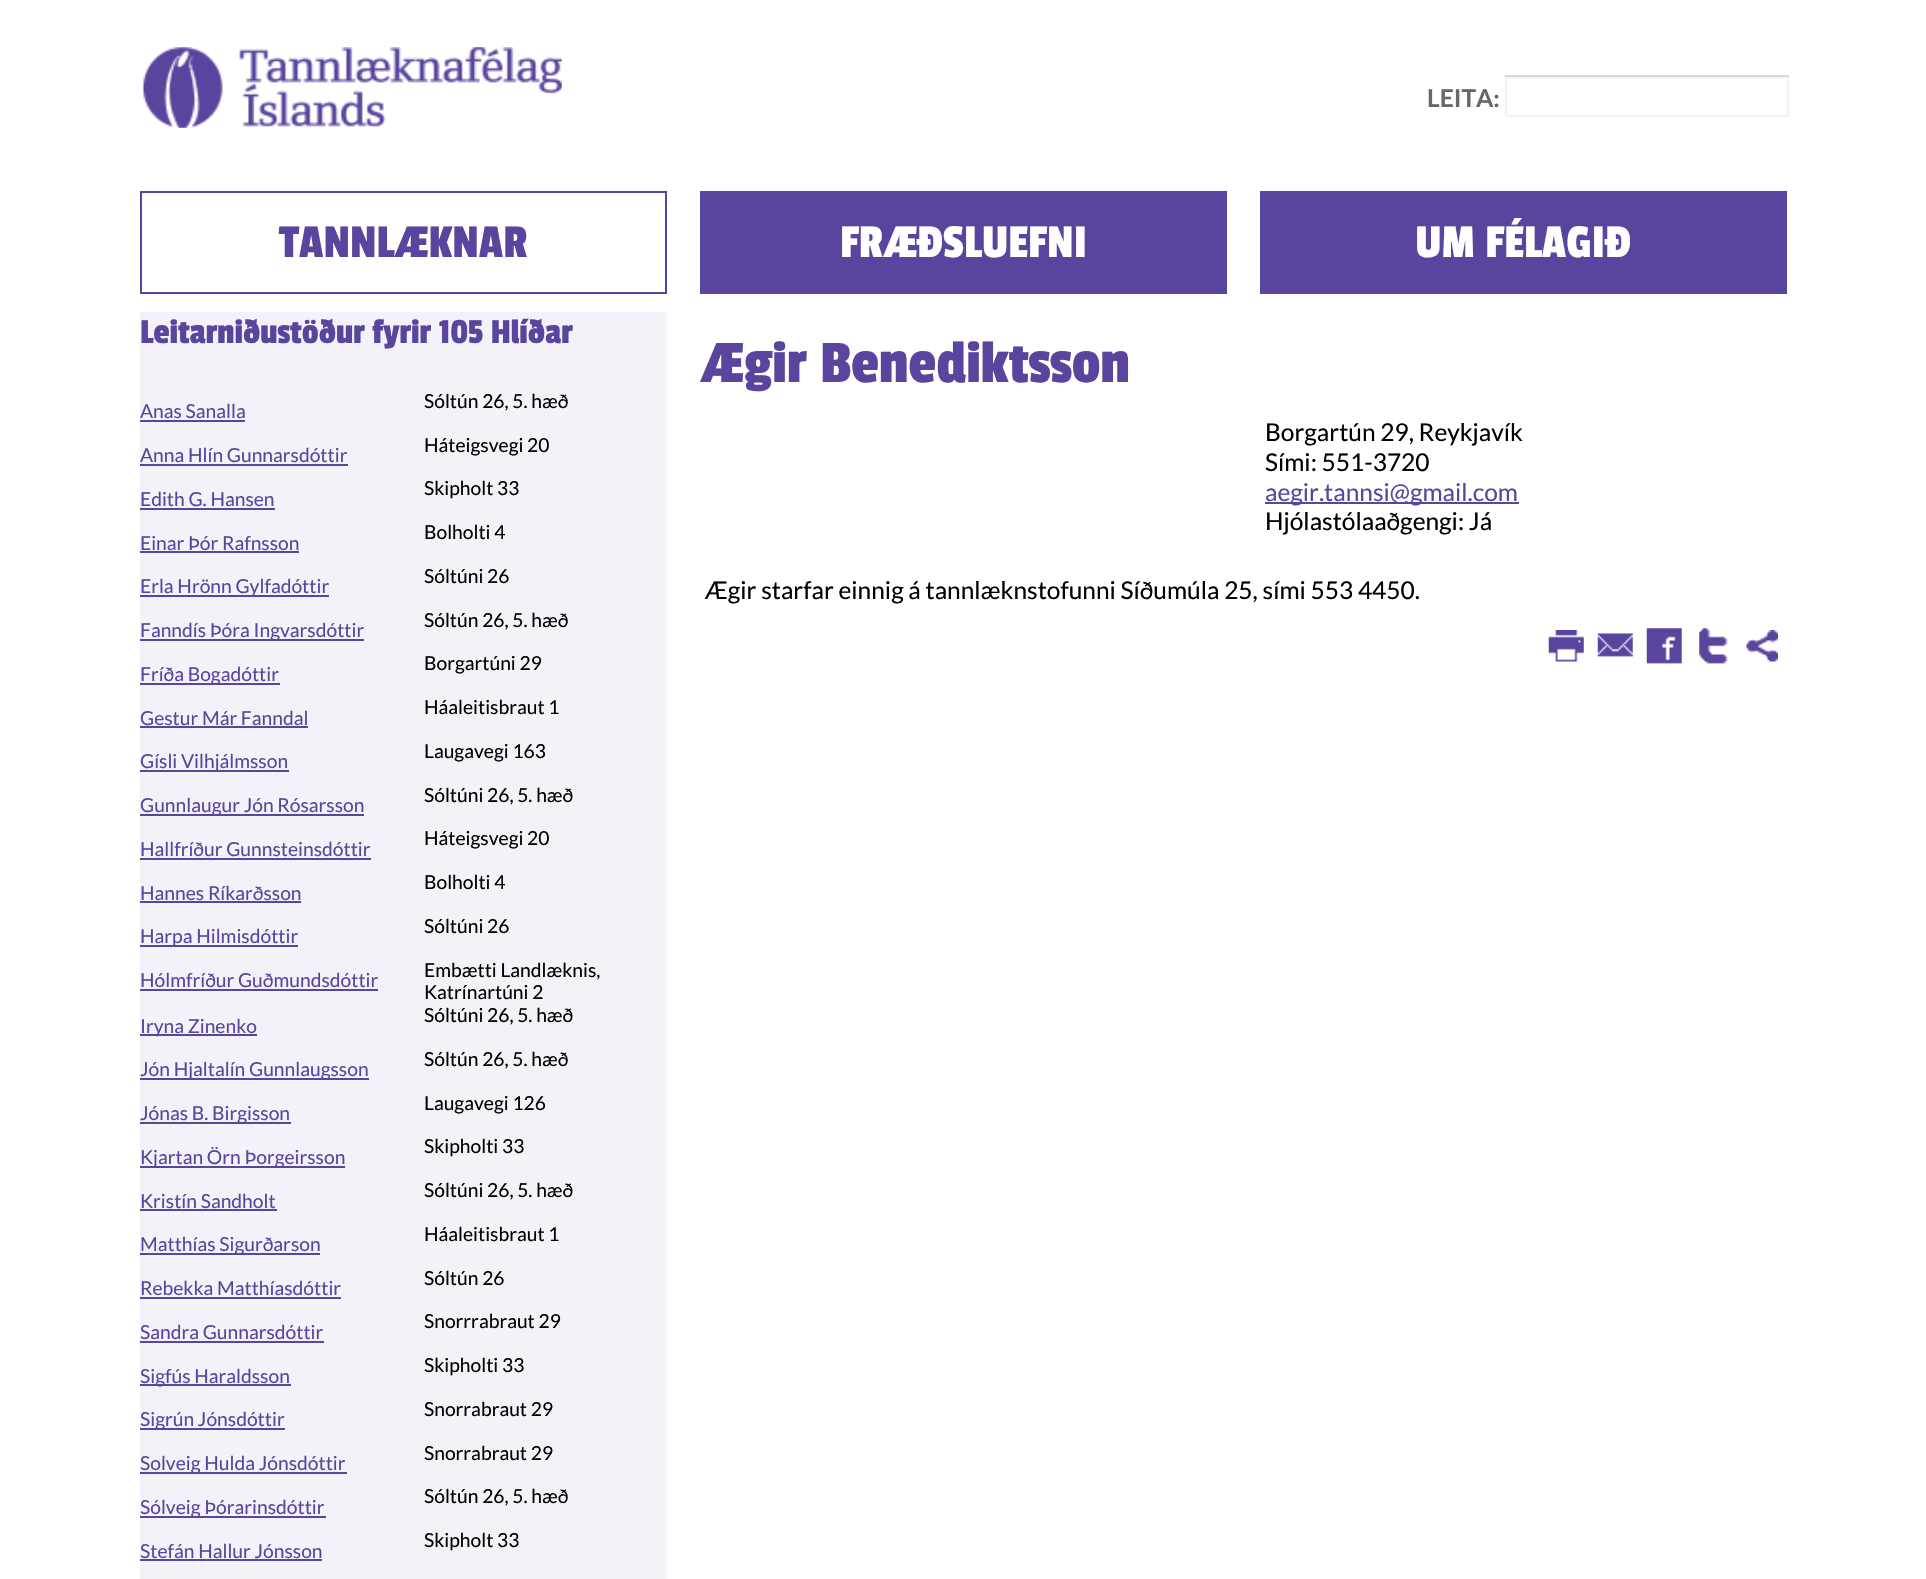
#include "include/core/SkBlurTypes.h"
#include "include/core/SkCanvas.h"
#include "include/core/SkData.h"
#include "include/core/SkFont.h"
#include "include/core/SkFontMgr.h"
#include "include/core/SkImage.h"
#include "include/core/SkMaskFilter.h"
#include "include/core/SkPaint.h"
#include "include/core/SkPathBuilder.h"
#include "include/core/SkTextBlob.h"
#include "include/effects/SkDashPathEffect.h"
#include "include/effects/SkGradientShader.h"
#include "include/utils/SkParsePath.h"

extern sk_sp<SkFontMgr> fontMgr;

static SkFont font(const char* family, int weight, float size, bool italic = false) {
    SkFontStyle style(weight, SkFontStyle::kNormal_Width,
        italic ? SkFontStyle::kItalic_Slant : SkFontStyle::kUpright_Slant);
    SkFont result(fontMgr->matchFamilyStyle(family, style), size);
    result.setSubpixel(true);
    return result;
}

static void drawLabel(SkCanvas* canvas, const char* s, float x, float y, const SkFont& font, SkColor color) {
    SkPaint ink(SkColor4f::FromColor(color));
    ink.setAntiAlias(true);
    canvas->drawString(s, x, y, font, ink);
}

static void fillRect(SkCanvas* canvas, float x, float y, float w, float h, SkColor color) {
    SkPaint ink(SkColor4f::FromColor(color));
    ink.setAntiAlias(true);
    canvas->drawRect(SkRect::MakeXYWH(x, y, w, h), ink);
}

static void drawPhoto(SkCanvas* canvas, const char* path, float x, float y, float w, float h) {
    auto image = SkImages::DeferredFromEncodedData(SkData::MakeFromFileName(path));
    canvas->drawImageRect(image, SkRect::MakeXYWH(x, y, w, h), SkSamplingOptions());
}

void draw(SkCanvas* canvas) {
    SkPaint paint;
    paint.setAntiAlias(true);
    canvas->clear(0xFFFFFFFF);
    drawPhoto(canvas, "assets/img1.png", 143, 47, 419, 81);
    SkFont font1 = font("Lato", 700, 24.5f);
    drawLabel(canvas, "LEITA:", 1427, 107, font1, 0xFF676766);
    fillRect(canvas, 1505, 75, 284, 2, 0xFFD9D9D9);
    paint.setStroke(true);
    paint.setStrokeWidth(2);
    paint.setColor(0xFFF1F5F5);
    canvas->drawRect(SkRect::MakeXYWH(1506, 78, 282, 38), paint);
    paint.setColor(0xFF59459E);
    canvas->drawRect(SkRect::MakeXYWH(141, 192, 525, 101), paint);
    SkFont font2 = font("Passion One", 400, 49);
    drawLabel(canvas, "TANNLÆKNAR", 279, 257, font2, 0xFF59459D);
    fillRect(canvas, 700, 191, 527, 103, 0xFF59459E);
    drawLabel(canvas, "FRÆÐSLUEFNI", 840, 257, font2, 0xFFFFFFFF);
    fillRect(canvas, 1260, 191, 527, 103, 0xFF59459E);
    drawLabel(canvas, "UM FÉLAGIÐ", 1415, 257, font2, 0xFFFFFFFF);
    fillRect(canvas, 140, 312, 527, 1267, 0xFFF3F2F8);
    SkFont font3 = font("Passion One", 400, 36.75f);
    drawLabel(canvas, "Leitarniðustöður fyrir 105 Hlíðar", 140, 343, font3, 0xFF59459D);
    SkFont font4 = font("Lato", 400, 19.25f);
    drawLabel(canvas, "Anas Sanalla", 140, 418, font4, 0xFF59459D);
    fillRect(canvas, 140, 420, 105, 2, 0xFF59459D);
    drawLabel(canvas, "Sóltún 26, 5. hæð", 424, 408, font4, 0xFF000000);
    drawLabel(canvas, "Anna Hlín Gunnarsdóttir", 140, 462, font4, 0xFF59459D);
    fillRect(canvas, 140, 464, 208, 2, 0xFF59459D);
    drawLabel(canvas, "Háteigsvegi 20", 424, 452, font4, 0xFF000000);
    drawLabel(canvas, "Edith G. Hansen", 140, 506, font4, 0xFF59459D);
    fillRect(canvas, 140, 508, 135, 2, 0xFF59459D);
    drawLabel(canvas, "Skipholt 33", 424, 495, font4, 0xFF000000);
    drawLabel(canvas, "Bolholti 4", 424, 539, font4, 0xFF000000);
    drawLabel(canvas, "Einar Þór Rafnsson", 140, 550, font4, 0xFF59459D);
    fillRect(canvas, 140, 551, 159, 2, 0xFF59459D);
    drawLabel(canvas, "Sóltúni 26", 424, 583, font4, 0xFF000000);
    fillRect(canvas, 140, 595, 189, 2, 0xFF59459D);
    drawLabel(canvas, "Erla Hrönn Gylfadóttir", 140, 593, font4, 0xFF59459D);
    fillRect(canvas, 140, 639, 224, 2, 0xFF59459D);
    drawLabel(canvas, "Fanndís Þóra Ingvarsdóttir", 140, 637, font4, 0xFF59459D);
    drawLabel(canvas, "Sóltún 26, 5. hæð", 424, 627, font4, 0xFF000000);
    fillRect(canvas, 140, 683, 140, 2, 0xFF59459D);
    drawLabel(canvas, "Fríða Bogadóttir", 140, 681, font4, 0xFF59459D);
    drawLabel(canvas, "Borgartúni 29", 424, 670, font4, 0xFF000000);
    drawLabel(canvas, "Háaleitisbraut 1", 424, 714, font4, 0xFF000000);
    drawLabel(canvas, "Gestur Már Fanndal", 140, 725, font4, 0xFF59459D);
    fillRect(canvas, 140, 726, 168, 2, 0xFF59459D);
    fillRect(canvas, 140, 770, 149, 2, 0xFF59459D);
    drawLabel(canvas, "Gísli Vilhjálmsson", 140, 768, font4, 0xFF59459D);
    drawLabel(canvas, "Laugavegi 163", 424, 758, font4, 0xFF000000);
    fillRect(canvas, 140, 814, 224, 2, 0xFF59459D);
    drawLabel(canvas, "Gunnlaugur Jón Rósarsson", 140, 812, font4, 0xFF59459D);
    drawLabel(canvas, "Sóltúni 26, 5. hæð", 424, 802, font4, 0xFF000000);
    drawLabel(canvas, "Hallfríður Gunnsteinsdóttir", 140, 856, font4, 0xFF59459D);
    fillRect(canvas, 140, 858, 231, 2, 0xFF59459D);
    drawLabel(canvas, "Háteigsvegi 20", 424, 845, font4, 0xFF000000);
    drawLabel(canvas, "Bolholti 4", 424, 889, font4, 0xFF000000);
    drawLabel(canvas, "Hannes Ríkarðsson", 140, 900, font4, 0xFF59459D);
    fillRect(canvas, 140, 901, 161, 2, 0xFF59459D);
    drawLabel(canvas, "Sóltúni 26", 424, 933, font4, 0xFF000000);
    fillRect(canvas, 140, 945, 158, 2, 0xFF59459D);
    drawLabel(canvas, "Harpa Hilmisdóttir", 140, 943, font4, 0xFF59459D);
    drawLabel(canvas, "Hólmfríður Guðmundsdóttir", 140, 987, font4, 0xFF59459D);
    fillRect(canvas, 140, 989, 238, 2, 0xFF59459D);
    drawLabel(canvas, "Embætti Landlæknis,", 424, 977, font4, 0xFF000000);
    drawLabel(canvas, "Katrínartúni 2", 424, 999, font4, 0xFF000000);
    drawLabel(canvas, "Sóltúni 26, 5. hæð", 424, 1022, font4, 0xFF000000);
    fillRect(canvas, 140, 1034, 117, 2, 0xFF59459D);
    drawLabel(canvas, "Iryna Zinenko", 140, 1033, font4, 0xFF59459D);
    fillRect(canvas, 140, 1078, 229, 2, 0xFF59459D);
    drawLabel(canvas, "Jón Hjaltalín Gunnlaugsson", 140, 1076, font4, 0xFF59459D);
    drawLabel(canvas, "Sóltún 26, 5. hæð", 424, 1066, font4, 0xFF000000);
    fillRect(canvas, 140, 1122, 151, 2, 0xFF59459D);
    drawLabel(canvas, "Jónas B. Birgisson", 140, 1120, font4, 0xFF59459D);
    drawLabel(canvas, "Laugavegi 126", 424, 1110, font4, 0xFF000000);
    fillRect(canvas, 140, 1166, 205, 2, 0xFF59459D);
    drawLabel(canvas, "Kjartan Örn Þorgeirsson", 140, 1164, font4, 0xFF59459D);
    drawLabel(canvas, "Skipholti 33", 424, 1153, font4, 0xFF000000);
    drawLabel(canvas, "Kristín Sandholt", 140, 1208, font4, 0xFF59459D);
    fillRect(canvas, 140, 1209, 137, 2, 0xFF59459D);
    drawLabel(canvas, "Sóltúni 26, 5. hæð", 424, 1197, font4, 0xFF000000);
    drawLabel(canvas, "Háaleitisbraut 1", 424, 1241, font4, 0xFF000000);
    fillRect(canvas, 140, 1253, 180, 2, 0xFF59459D);
    drawLabel(canvas, "Matthías Sigurðarson", 140, 1251, font4, 0xFF59459D);
    drawLabel(canvas, "Sóltún 26", 424, 1285, font4, 0xFF000000);
    drawLabel(canvas, "Rebekka Matthíasdóttir", 140, 1295, font4, 0xFF59459D);
    fillRect(canvas, 140, 1297, 201, 2, 0xFF59459D);
    drawLabel(canvas, "Snorrrabraut 29", 424, 1328, font4, 0xFF000000);
    drawLabel(canvas, "Sandra Gunnarsdóttir", 140, 1339, font4, 0xFF59459D);
    fillRect(canvas, 140, 1341, 184, 2, 0xFF59459D);
    fillRect(canvas, 140, 1384, 151, 2, 0xFF59459D);
    drawLabel(canvas, "Sigfús Haraldsson", 140, 1383, font4, 0xFF59459D);
    drawLabel(canvas, "Skipholti 33", 424, 1372, font4, 0xFF000000);
    drawLabel(canvas, "Snorrabraut 29", 424, 1416, font4, 0xFF000000);
    fillRect(canvas, 140, 1428, 145, 2, 0xFF59459D);
    drawLabel(canvas, "Sigrún Jónsdóttir", 140, 1426, font4, 0xFF59459D);
    drawLabel(canvas, "Snorrabraut 29", 424, 1460, font4, 0xFF000000);
    fillRect(canvas, 140, 1472, 207, 2, 0xFF59459D);
    drawLabel(canvas, "Solveig Hulda Jónsdóttir", 140, 1470, font4, 0xFF59459D);
    drawLabel(canvas, "Sóltún 26, 5. hæð", 424, 1503, font4, 0xFF000000);
    fillRect(canvas, 140, 1516, 186, 2, 0xFF59459D);
    drawLabel(canvas, "Sólveig Þórarinsdóttir", 140, 1514, font4, 0xFF59459D);
    drawLabel(canvas, "Stefán Hallur Jónsson", 140, 1558, font4, 0xFF59459D);
    fillRect(canvas, 140, 1559, 182, 2, 0xFF59459D);
    drawLabel(canvas, "Skipholt 33", 424, 1547, font4, 0xFF000000);
    SkFont font5 = font("Passion One", 400, 63);
    drawLabel(canvas, "Ægir Benediktsson", 700, 382, font5, 0xFF59459D);
    SkFont font6 = font("Lato", 400, 24.5f);
    drawLabel(canvas, "Borgartún 29, Reykjavík", 1265, 441, font6, 0xFF000000);
    drawLabel(canvas, "Sími: 551-3720", 1265, 471, font6, 0xFF000000);
    fillRect(canvas, 1265, 502, 254, 2, 0xFF59459D);
    drawLabel(canvas, "aegir.tannsi@gmail.com", 1265, 501, font6, 0xFF59459D);
    drawLabel(canvas, "Hjólastólaaðgengi: Já", 1265, 530, font6, 0xFF000000);
    drawLabel(canvas, "Ægir starfar einnig á tannlæknstofunni Síðumúla 25, sími 553 4450.", 705, 599, font6, 0xFF000000);
    drawPhoto(canvas, "assets/img2.png", 1548, 630, 36, 32);
    drawPhoto(canvas, "assets/img3.png", 1597, 633, 36, 24);
    drawPhoto(canvas, "assets/img4.png", 1646, 628, 36, 36);
    drawPhoto(canvas, "assets/img5.png", 1699, 628, 29, 36);
    drawPhoto(canvas, "assets/img6.png", 1746, 630, 32, 32);
}
